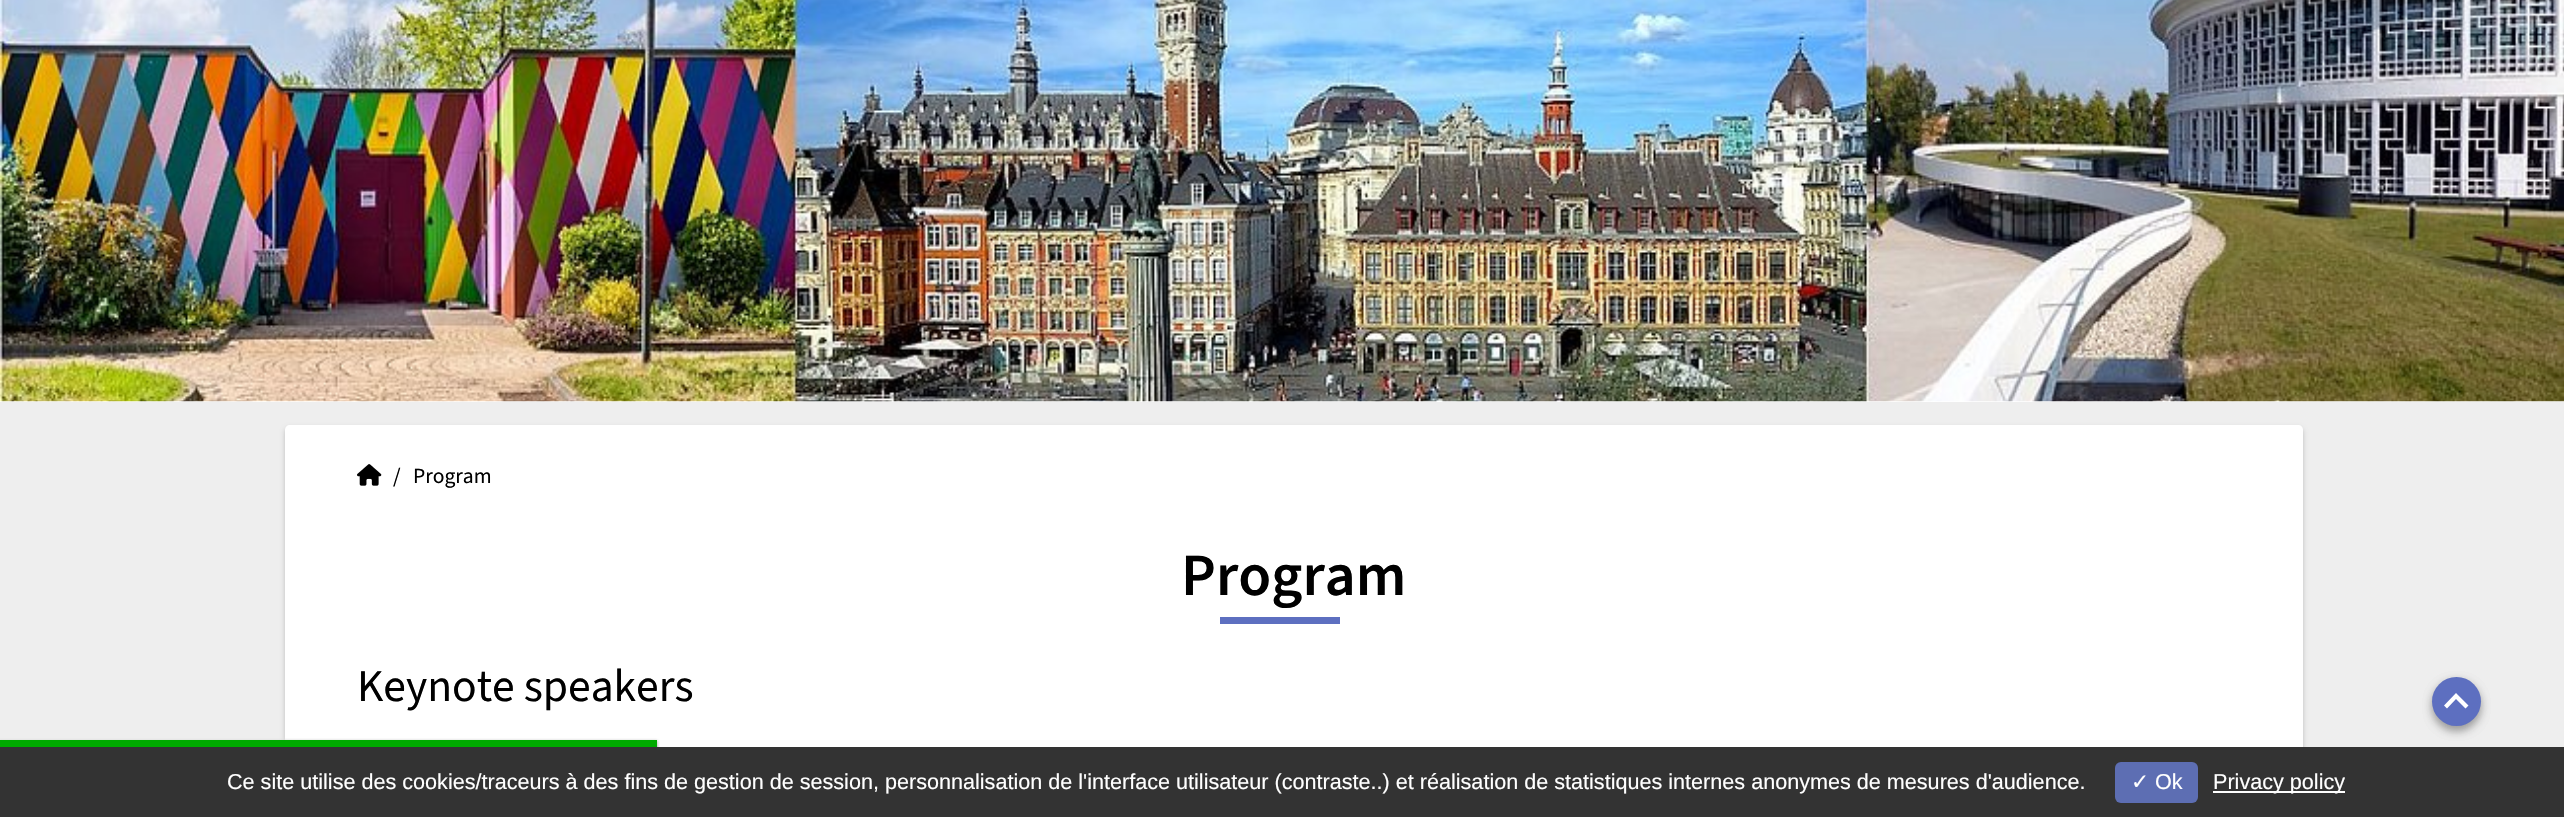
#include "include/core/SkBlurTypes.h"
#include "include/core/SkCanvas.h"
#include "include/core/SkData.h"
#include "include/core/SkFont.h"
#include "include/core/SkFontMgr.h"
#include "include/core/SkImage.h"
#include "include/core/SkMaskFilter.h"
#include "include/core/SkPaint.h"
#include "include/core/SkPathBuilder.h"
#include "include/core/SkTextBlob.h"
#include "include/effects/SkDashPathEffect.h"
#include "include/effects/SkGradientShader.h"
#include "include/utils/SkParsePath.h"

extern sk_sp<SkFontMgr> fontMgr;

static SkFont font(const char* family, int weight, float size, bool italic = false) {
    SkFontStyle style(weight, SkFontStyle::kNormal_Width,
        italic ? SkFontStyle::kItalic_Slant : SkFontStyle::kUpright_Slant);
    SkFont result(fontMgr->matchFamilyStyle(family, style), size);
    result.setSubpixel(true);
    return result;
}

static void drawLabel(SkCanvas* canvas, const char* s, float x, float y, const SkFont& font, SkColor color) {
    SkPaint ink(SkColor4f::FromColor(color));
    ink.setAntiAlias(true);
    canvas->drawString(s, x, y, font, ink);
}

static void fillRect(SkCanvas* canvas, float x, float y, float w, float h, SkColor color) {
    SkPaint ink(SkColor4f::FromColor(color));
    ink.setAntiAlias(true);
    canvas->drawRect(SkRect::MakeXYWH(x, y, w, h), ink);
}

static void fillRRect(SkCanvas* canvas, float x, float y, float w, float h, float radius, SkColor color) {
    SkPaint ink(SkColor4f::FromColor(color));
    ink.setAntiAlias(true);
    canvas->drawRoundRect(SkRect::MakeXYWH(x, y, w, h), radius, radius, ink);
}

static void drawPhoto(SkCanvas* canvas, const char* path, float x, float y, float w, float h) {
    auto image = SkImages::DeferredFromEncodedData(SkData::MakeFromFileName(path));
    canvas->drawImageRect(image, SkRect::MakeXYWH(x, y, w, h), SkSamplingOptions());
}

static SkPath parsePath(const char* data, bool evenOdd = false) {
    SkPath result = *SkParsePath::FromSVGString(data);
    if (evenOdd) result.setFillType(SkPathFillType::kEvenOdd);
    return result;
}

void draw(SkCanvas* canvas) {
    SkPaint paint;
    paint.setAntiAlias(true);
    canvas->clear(0xFFFFFFFF);
    drawPhoto(canvas, "assets/img1.png", 0, 0, 2564, 402);
    fillRect(canvas, 0, 402, 2564, 345, 0xFFEEEEEE);
    paint.setColor(0x33000000);
    paint.setMaskFilter(SkMaskFilter::MakeBlur(kNormal_SkBlurStyle, 2.5f));
    canvas->drawRoundRect(SkRect::MakeXYWH(285, 428, 2018, 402), 5, 5, paint);
    paint.setMaskFilter(nullptr);
    paint.setColor(0xFFFFFFFF);
    canvas->drawPath(parsePath("M290 425H2298C2301 425 2303 427 2303 430V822H285V430C285 427 287 425 290 425Z"), paint);
    drawPhoto(canvas, "assets/img2.png", 357, 464, 25, 22);
    SkFont font1 = font("Source Sans 3", 400, 21.6f);
    drawLabel(canvas, "/", 393, 483, font1, 0xFF000000);
    drawLabel(canvas, "Program", 413, 483, font1, 0xFF000000);
    SkFont font2 = font("Source Sans 3", 600, 60);
    drawLabel(canvas, "Program", 1181, 595, font2, 0xFF000000);
    fillRect(canvas, 1220, 617, 120, 7, 0xFF5D6FC0);
    SkFont font3 = font("Source Sans 3", 400, 45.5f);
    drawLabel(canvas, "Keynote speakers", 357, 701, font3, 0xFF000000);
    paint.setColor(0x3B000000);
    paint.setMaskFilter(SkMaskFilter::MakeBlur(kNormal_SkBlurStyle, 4.5f));
    canvas->drawRoundRect(SkRect::MakeXYWH(2432, 681, 49, 50), 24.5f, 24.5f, paint);
    paint.setMaskFilter(nullptr);
    paint.setColor(0x29000000);
    paint.setMaskFilter(SkMaskFilter::MakeBlur(kNormal_SkBlurStyle, 4.5f));
    canvas->drawRoundRect(SkRect::MakeXYWH(2432, 681, 49, 50), 24.5f, 24.5f, paint);
    paint.setMaskFilter(nullptr);
    paint.setColor(0xFF5D6FC0);
    canvas->drawCircle(2456.5f, 701.5f, 24.5f, paint);
    paint.setColor(0xFFFFFFFF);
    canvas->drawPath(parsePath("M2447 708.5L2456 699L2465.5 708.5L2468.5 705.5L2456 693L2444 705.5Z"), paint);
    paint.setColor(0xFF555555);
    paint.setMaskFilter(SkMaskFilter::MakeBlur(kNormal_SkBlurStyle, 1.5f));
    canvas->drawRect(SkRect::MakeXYWH(0, 741, 657, 8), paint);
    paint.setMaskFilter(nullptr);
    paint.setColor(0xFFFFFFFF);
    paint.setMaskFilter(SkMaskFilter::MakeBlur(kNormal_SkBlurStyle, 1.5f));
    canvas->drawRect(SkRect::MakeXYWH(0, 740, 657, 7), paint);
    paint.setMaskFilter(nullptr);
    fillRect(canvas, 0, 740, 657, 7, 0xFF00AA00);
    fillRect(canvas, 0, 747, 2564, 70, 0xFF333333);
    SkFont font4 = font("Liberation Sans", 400, 21.6f);
    drawLabel(canvas, "Ce site utilise des cookies/traceurs à des fins de gestion de session, personnalisation de l'interface utilisateur (contraste..) et réalisation de statistiques internes anonymes de mesures d'audience.", 227, 789, font4, 0xFFFFFFFF);
    fillRRect(canvas, 2115, 762, 83, 41, 6, 0xFF5D6EB3);
    SkFont font5 = font("DejaVu Sans", 400, 21.6f);
    drawLabel(canvas, "✓", 2131, 789, font5, 0xFFFFFFFF);
    drawLabel(canvas, "Ok", 2155, 789, font4, 0xFFFFFFFF);
    fillRect(canvas, 2213, 791, 132, 2, 0xFFFFFFFF);
    drawLabel(canvas, "Privacy policy", 2213, 789, font4, 0xFFFFFFFF);
}
